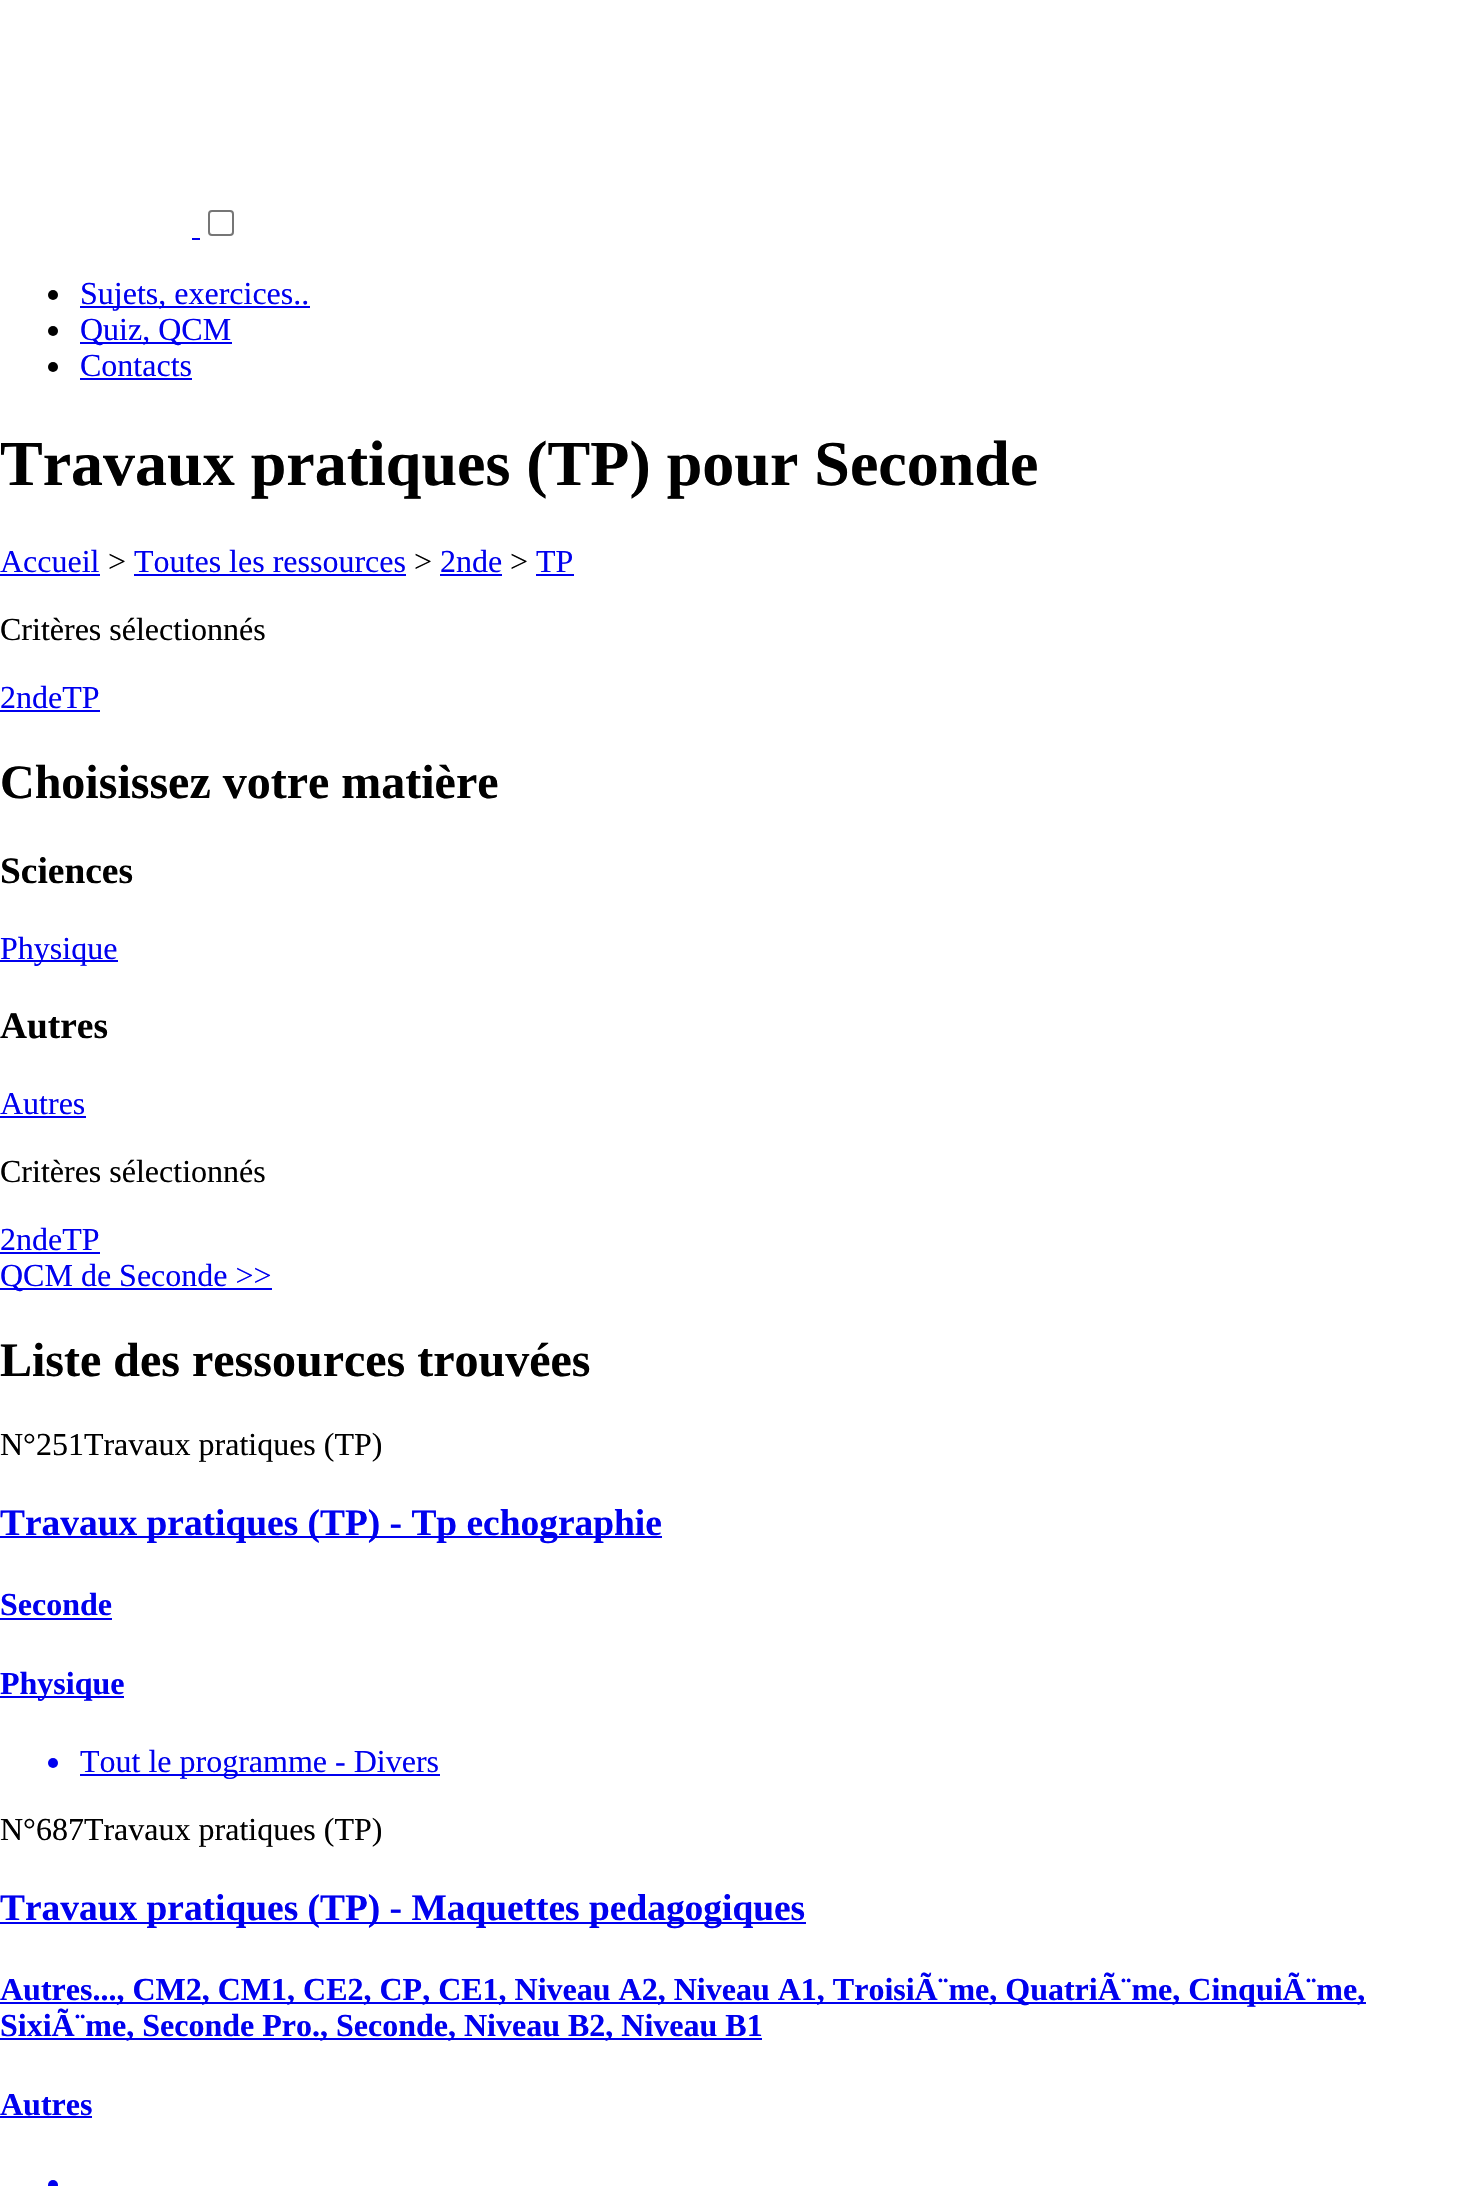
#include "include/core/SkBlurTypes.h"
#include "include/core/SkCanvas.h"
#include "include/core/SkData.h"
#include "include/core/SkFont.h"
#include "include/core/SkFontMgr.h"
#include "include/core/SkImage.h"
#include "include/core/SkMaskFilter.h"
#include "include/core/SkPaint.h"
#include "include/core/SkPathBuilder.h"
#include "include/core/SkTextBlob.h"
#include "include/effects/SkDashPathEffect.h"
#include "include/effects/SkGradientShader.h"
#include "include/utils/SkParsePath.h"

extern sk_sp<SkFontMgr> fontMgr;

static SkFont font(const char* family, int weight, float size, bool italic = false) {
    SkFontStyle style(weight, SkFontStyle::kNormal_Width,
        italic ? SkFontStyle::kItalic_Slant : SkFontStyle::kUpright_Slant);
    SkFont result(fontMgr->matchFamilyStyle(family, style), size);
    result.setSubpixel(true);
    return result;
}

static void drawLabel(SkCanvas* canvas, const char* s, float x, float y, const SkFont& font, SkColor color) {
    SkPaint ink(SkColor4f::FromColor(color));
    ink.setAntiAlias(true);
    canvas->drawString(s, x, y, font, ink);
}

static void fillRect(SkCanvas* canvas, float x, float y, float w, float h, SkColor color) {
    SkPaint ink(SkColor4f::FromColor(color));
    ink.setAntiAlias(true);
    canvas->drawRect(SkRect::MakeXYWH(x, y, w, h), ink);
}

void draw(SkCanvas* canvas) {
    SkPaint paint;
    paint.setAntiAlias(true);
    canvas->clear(0xFFFFFFFF);
    paint.setStroke(true);
    paint.setStrokeWidth(2);
    paint.setColor(0xFF767676);
    canvas->drawRoundRect(SkRect::MakeXYWH(209, 211, 24, 24), 3, 3, paint);
    fillRect(canvas, 192, 238, 8, 2, 0xFF0000EE);
    paint.setStroke(false);
    paint.setColor(0xFF000000);
    canvas->drawCircle(53, 295, 5, paint);
    fillRect(canvas, 80, 306, 230, 2, 0xFF0000EE);
    SkFont font1 = font("Liberation Serif", 400, 32);
    drawLabel(canvas, "Sujets, exercices..", 80, 304, font1, 0xFF0000EE);
    canvas->drawCircle(53, 331, 5, paint);
    fillRect(canvas, 80, 342, 152, 2, 0xFF0000EE);
    drawLabel(canvas, "Quiz, QCM", 80, 340, font1, 0xFF0000EE);
    canvas->drawCircle(53, 367, 5, paint);
    drawLabel(canvas, "Contacts", 80, 376, font1, 0xFF0000EE);
    fillRect(canvas, 80, 378, 112, 2, 0xFF0000EE);
    SkFont font2 = font("Liberation Serif", 700, 64);
    drawLabel(canvas, "Travaux pratiques (TP) pour Seconde", 0, 485, font2, 0xFF000000);
    drawLabel(canvas, "Accueil", 0, 572, font1, 0xFF0000EE);
    fillRect(canvas, 0, 574, 100, 2, 0xFF0000EE);
    drawLabel(canvas, ">", 108, 572, font1, 0xFF000000);
    drawLabel(canvas, "Toutes les ressources", 134, 572, font1, 0xFF0000EE);
    fillRect(canvas, 134, 574, 272, 2, 0xFF0000EE);
    drawLabel(canvas, ">", 414, 572, font1, 0xFF000000);
    drawLabel(canvas, "2nde", 440, 572, font1, 0xFF0000EE);
    fillRect(canvas, 440, 574, 62, 2, 0xFF0000EE);
    drawLabel(canvas, ">", 510, 572, font1, 0xFF000000);
    drawLabel(canvas, "TP", 536, 572, font1, 0xFF0000EE);
    fillRect(canvas, 536, 574, 38, 2, 0xFF0000EE);
    drawLabel(canvas, "Critères sélectionnés", 0, 640, font1, 0xFF000000);
    drawLabel(canvas, "2ndeTP", 0, 708, font1, 0xFF0000EE);
    fillRect(canvas, 0, 710, 100, 2, 0xFF0000EE);
    SkFont font3 = font("Liberation Serif", 700, 48);
    drawLabel(canvas, "Choisissez votre matière", 0, 798, font3, 0xFF000000);
    SkFont font4 = font("Liberation Serif", 700, 37.4f);
    drawLabel(canvas, "Sciences", 0, 883, font4, 0xFF000000);
    fillRect(canvas, 0, 960, 118, 2, 0xFF0000EE);
    drawLabel(canvas, "Physique", 0, 959, font1, 0xFF0000EE);
    drawLabel(canvas, "Autres", 0, 1038, font4, 0xFF000000);
    drawLabel(canvas, "Autres", 0, 1114, font1, 0xFF0000EE);
    fillRect(canvas, 0, 1116, 86, 2, 0xFF0000EE);
    drawLabel(canvas, "Critères sélectionnés", 0, 1182, font1, 0xFF000000);
    drawLabel(canvas, "2ndeTP", 0, 1250, font1, 0xFF0000EE);
    fillRect(canvas, 0, 1252, 100, 2, 0xFF0000EE);
    fillRect(canvas, 0, 1288, 272, 2, 0xFF0000EE);
    drawLabel(canvas, "QCM de Seconde >>", 0, 1286, font1, 0xFF0000EE);
    drawLabel(canvas, "Liste des ressources trouvées", 0, 1376, font3, 0xFF000000);
    drawLabel(canvas, "N°251Travaux pratiques (TP)", 0, 1455, font1, 0xFF000000);
    fillRect(canvas, 0, 1536, 662, 2, 0xFF0000EE);
    drawLabel(canvas, "Travaux pratiques (TP) - Tp echographie", 0, 1535, font4, 0xFF0000EE);
    SkFont font5 = font("Liberation Serif", 700, 32);
    drawLabel(canvas, "Seconde", 0, 1615, font5, 0xFF0000EE);
    fillRect(canvas, 0, 1618, 112, 2, 0xFF0000EE);
    fillRect(canvas, 0, 1696, 124, 2, 0xFF0000EE);
    drawLabel(canvas, "Physique", 0, 1694, font5, 0xFF0000EE);
    paint.setColor(0xFF0000EE);
    canvas->drawCircle(53, 1763, 5, paint);
    fillRect(canvas, 80, 1774, 360, 2, 0xFF0000EE);
    drawLabel(canvas, "Tout le programme - Divers", 80, 1772, font1, 0xFF0000EE);
    drawLabel(canvas, "N°687Travaux pratiques (TP)", 0, 1840, font1, 0xFF000000);
    fillRect(canvas, 0, 1922, 806, 2, 0xFF0000EE);
    drawLabel(canvas, "Travaux pratiques (TP) - Maquettes pedagogiques", 0, 1920, font4, 0xFF0000EE);
    fillRect(canvas, 0, 2002, 1366, 2, 0xFF0000EE);
    drawLabel(canvas, "Autres..., CM2, CM1, CE2, CP, CE1, Niveau A2, Niveau A1, TroisiÃ¨me, QuatriÃ¨me, CinquiÃ¨me,", 0, 2000, font5, 0xFF0000EE);
    fillRect(canvas, 0, 2038, 762, 2, 0xFF0000EE);
    drawLabel(canvas, "SixiÃ¨me, Seconde Pro., Seconde, Niveau B2, Niveau B1", 0, 2036, font5, 0xFF0000EE);
    drawLabel(canvas, "Autres", 0, 2115, font5, 0xFF0000EE);
    fillRect(canvas, 0, 2116, 92, 2, 0xFF0000EE);
    canvas->drawCircle(53, 2185, 5, paint);
}
